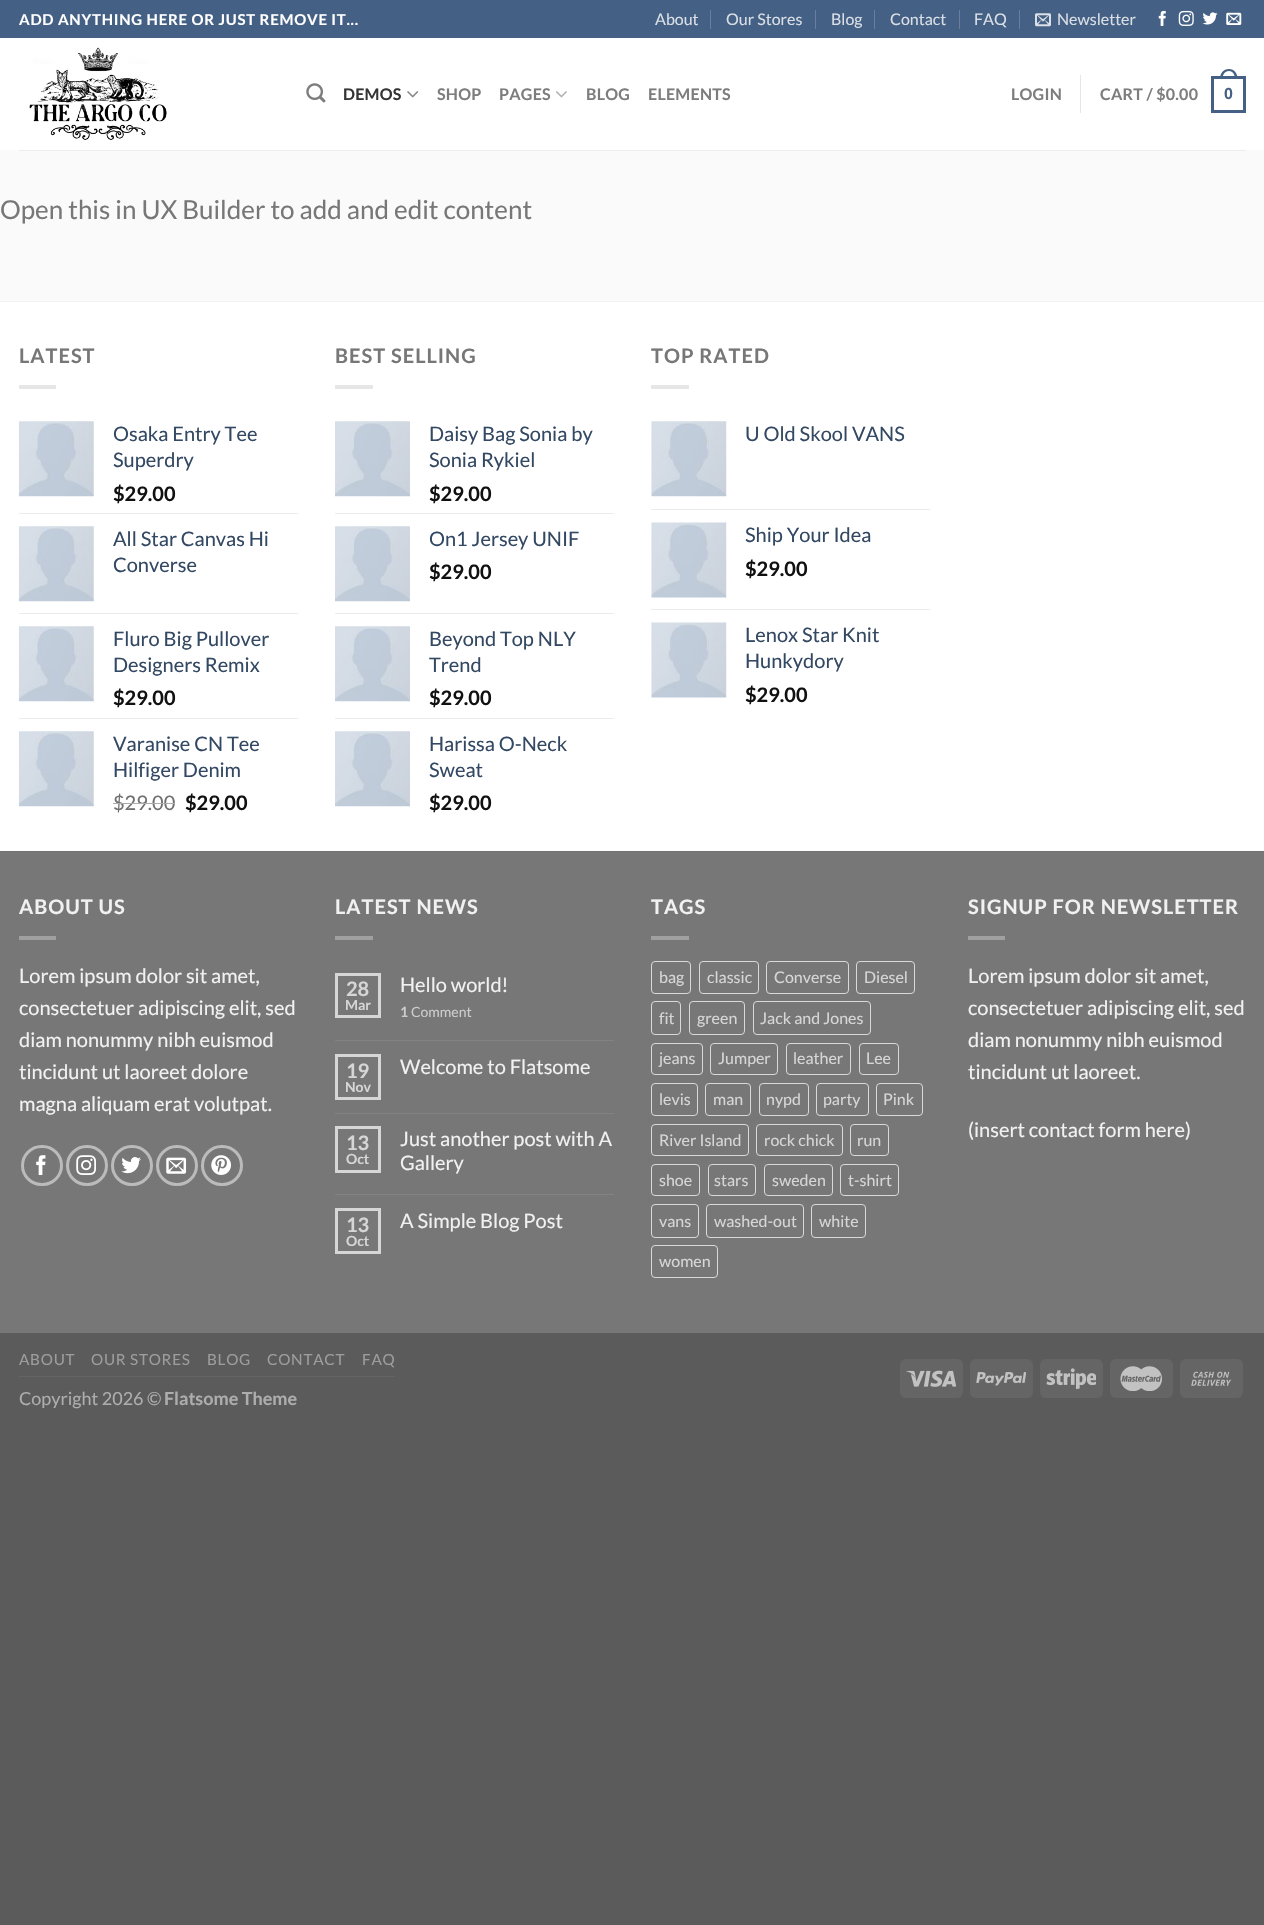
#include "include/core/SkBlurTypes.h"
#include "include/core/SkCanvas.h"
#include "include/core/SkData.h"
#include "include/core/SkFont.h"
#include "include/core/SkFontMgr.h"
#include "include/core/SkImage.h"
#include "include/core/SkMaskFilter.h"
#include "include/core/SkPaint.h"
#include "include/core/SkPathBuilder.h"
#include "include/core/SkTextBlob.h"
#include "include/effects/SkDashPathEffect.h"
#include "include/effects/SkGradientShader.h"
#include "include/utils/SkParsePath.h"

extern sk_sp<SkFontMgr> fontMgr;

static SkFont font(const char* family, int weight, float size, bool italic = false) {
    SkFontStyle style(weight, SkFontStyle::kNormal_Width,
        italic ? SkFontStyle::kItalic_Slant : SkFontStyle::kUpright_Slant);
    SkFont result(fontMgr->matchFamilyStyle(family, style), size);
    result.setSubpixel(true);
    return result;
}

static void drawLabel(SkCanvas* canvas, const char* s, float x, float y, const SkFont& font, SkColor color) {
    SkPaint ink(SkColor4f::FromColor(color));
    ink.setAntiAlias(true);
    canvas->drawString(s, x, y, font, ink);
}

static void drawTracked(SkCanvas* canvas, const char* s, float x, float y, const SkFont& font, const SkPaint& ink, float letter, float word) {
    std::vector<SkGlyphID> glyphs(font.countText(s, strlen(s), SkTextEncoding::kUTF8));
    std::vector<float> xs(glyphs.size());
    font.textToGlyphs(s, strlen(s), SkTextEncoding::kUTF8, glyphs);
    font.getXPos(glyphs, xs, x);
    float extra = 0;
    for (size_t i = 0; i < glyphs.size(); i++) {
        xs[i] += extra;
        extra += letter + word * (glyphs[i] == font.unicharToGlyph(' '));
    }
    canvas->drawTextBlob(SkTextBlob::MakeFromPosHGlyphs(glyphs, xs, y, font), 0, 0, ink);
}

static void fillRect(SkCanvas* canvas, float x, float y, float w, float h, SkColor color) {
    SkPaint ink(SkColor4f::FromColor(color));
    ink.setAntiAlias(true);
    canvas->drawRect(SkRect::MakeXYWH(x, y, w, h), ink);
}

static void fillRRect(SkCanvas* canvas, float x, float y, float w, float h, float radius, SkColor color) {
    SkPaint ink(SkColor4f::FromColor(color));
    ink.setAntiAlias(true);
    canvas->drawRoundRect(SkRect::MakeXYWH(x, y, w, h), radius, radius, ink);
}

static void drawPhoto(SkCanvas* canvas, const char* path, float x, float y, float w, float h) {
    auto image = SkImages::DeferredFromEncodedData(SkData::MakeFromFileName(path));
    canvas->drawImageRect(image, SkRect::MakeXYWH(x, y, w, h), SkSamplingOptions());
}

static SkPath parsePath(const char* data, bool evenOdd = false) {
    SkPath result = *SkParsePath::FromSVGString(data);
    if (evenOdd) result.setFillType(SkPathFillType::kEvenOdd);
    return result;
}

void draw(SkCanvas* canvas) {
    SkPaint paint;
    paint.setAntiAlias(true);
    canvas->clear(0xFF5B5B5B);
    fillRect(canvas, 0, 38, 1264, 813, 0xFFFFFFFF);
    fillRect(canvas, 0, 0, 1264, 38, 0xFF446084);
    SkFont font1 = font("Lato", 700, 15);
    paint.setColor(0xFFFFFFFF);
    drawTracked(canvas, "ADD ANYTHING HERE OR JUST REMOVE IT...", 19, 25, font1, paint, 0.75f, 0);
    SkFont font2 = font("Lato", 400, 16);
    drawLabel(canvas, "About", 655, 25, font2, 0xFFDADFE6);
    fillRect(canvas, 710, 10, 1, 19, 0xFF69809D);
    drawLabel(canvas, "Our Stores", 726, 25, font2, 0xFFDADFE6);
    fillRect(canvas, 815, 10, 1, 19, 0xFF69809D);
    drawLabel(canvas, "Blog", 831, 25, font2, 0xFFDADFE6);
    fillRect(canvas, 874, 10, 1, 19, 0xFF69809D);
    drawLabel(canvas, "Contact", 890, 25, font2, 0xFFDADFE6);
    fillRect(canvas, 959, 10, 1, 19, 0xFF69809D);
    drawLabel(canvas, "FAQ", 974, 25, font2, 0xFFDADFE6);
    fillRect(canvas, 1019, 10, 1, 19, 0xFF69809D);
    drawPhoto(canvas, "assets/img1.png", 1035, 13, 16, 14);
    drawLabel(canvas, "Newsletter", 1057, 25, font2, 0xFFDADFE6);
    drawPhoto(canvas, "assets/img2.png", 1158, 10, 8, 16);
    drawPhoto(canvas, "assets/img3.png", 1178, 10, 16, 16);
    drawPhoto(canvas, "assets/img4.png", 1202, 12, 16, 13);
    drawPhoto(canvas, "assets/img5.png", 1226, 12, 16, 13);
    drawPhoto(canvas, "assets/img6.png", 29, 47, 138, 93);
    drawPhoto(canvas, "assets/img7.png", 306, 83, 20, 20);
    SkFont font3 = font("Lato", 700, 16);
    paint.setColor(0xFF353535);
    drawTracked(canvas, "DEMOS", 343, 100, font3, paint, 0.25f, 0);
    drawPhoto(canvas, "assets/img8.png", 407, 91, 12, 7);
    paint.setColor(0xFF7D7D7D);
    drawTracked(canvas, "SHOP", 437, 100, font3, paint, 0.25f, 0);
    drawTracked(canvas, "PAGES", 499, 100, font3, paint, 0.25f, 0);
    drawPhoto(canvas, "assets/img9.png", 556, 91, 11, 7);
    drawTracked(canvas, "BLOG", 586, 100, font3, paint, 0.25f, 0);
    drawTracked(canvas, "ELEMENTS", 648, 100, font3, paint, 0.25f, 0);
    drawTracked(canvas, "LOGIN", 1011, 100, font3, paint, 0.25f, 0);
    fillRect(canvas, 1080, 75, 1, 38, 0xFFE6E6E6);
    drawTracked(canvas, "CART / $0.00", 1100, 100, font3, paint, 0.25f, 0);
    paint.setStroke(true);
    paint.setStrokeWidth(3);
    paint.setColor(0xFF446084);
    canvas->drawRect(SkRect::MakeXYWH(1212.5f, 77.5f, 32, 34), paint);
    paint.setStroke(false);
    canvas->drawPath(parsePath("M1229 69C1234.5 69 1237.5 73.5 1237.5 79H1220C1220 73.5 1223 69 1229 69ZM1229 71C1233 71 1235 75 1235 79H1222.5C1222.5 75 1224.5 71 1229 71Z", true), paint);
    SkFont font4 = font("Liberation Sans", 700, 16);
    drawTracked(canvas, "0", 1224, 99, font4, paint, 0.25f, 0);
    fillRect(canvas, 0, 150, 1264, 151, 0xFFFAFAFA);
    fillRect(canvas, 19, 150, 1227, 1, 0xFFEDEDED);
    SkFont font5 = font("Lato", 400, 26);
    drawLabel(canvas, "Open this in UX Builder to add and edit content", 0, 219, font5, 0xFF777777);
    fillRect(canvas, 0, 301, 1264, 1, 0xFFF2F2F2);
    SkFont font6 = font("Lato", 700, 20);
    paint.setColor(0xFF777777);
    drawTracked(canvas, "LATEST", 19, 363, font6, paint, 1, 0);
    fillRect(canvas, 19, 385, 37, 4, 0xFFE6E6E6);
    drawPhoto(canvas, "assets/img10.png", 18, 421, 76, 76);
    SkFont font7 = font("Lato", 400, 20);
    drawLabel(canvas, "Osaka Entry Tee", 113, 441, font7, 0xFF334862);
    drawLabel(canvas, "Superdry", 113, 467, font7, 0xFF334862);
    drawLabel(canvas, "$29.00", 113, 501, font6, 0xFF111111);
    fillRect(canvas, 19, 513, 279, 1, 0xFFECECEC);
    drawPhoto(canvas, "assets/img10.png", 18, 526, 76, 76);
    drawLabel(canvas, "All Star Canvas Hi", 113, 546, font7, 0xFF334862);
    drawLabel(canvas, "Converse", 113, 572, font7, 0xFF334862);
    fillRect(canvas, 19, 613, 279, 1, 0xFFECECEC);
    drawPhoto(canvas, "assets/img10.png", 18, 626, 76, 76);
    drawLabel(canvas, "Fluro Big Pullover", 113, 646, font7, 0xFF334862);
    drawLabel(canvas, "Designers Remix", 113, 672, font7, 0xFF334862);
    drawLabel(canvas, "$29.00", 113, 705, font6, 0xFF111111);
    fillRect(canvas, 19, 718, 279, 1, 0xFFECECEC);
    drawPhoto(canvas, "assets/img10.png", 18, 731, 76, 76);
    drawLabel(canvas, "Varanise CN Tee", 113, 751, font7, 0xFF334862);
    drawLabel(canvas, "Hilfiger Denim", 113, 777, font7, 0xFF334862);
    drawLabel(canvas, "$29.00", 113, 810, font7, 0xFF707070);
    fillRect(canvas, 113, 803, 62, 1, 0xFFADADAD);
    drawLabel(canvas, "$29.00", 185, 810, font6, 0xFF111111);
    drawTracked(canvas, "BEST SELLING", 335, 363, font6, paint, 1, 0);
    fillRect(canvas, 335, 385, 38, 4, 0xFFE6E6E6);
    drawPhoto(canvas, "assets/img11.png", 335, 421, 75, 76);
    drawLabel(canvas, "Daisy Bag Sonia by", 429, 441, font7, 0xFF334862);
    drawLabel(canvas, "Sonia Rykiel", 429, 467, font7, 0xFF334862);
    drawLabel(canvas, "$29.00", 429, 501, font6, 0xFF111111);
    fillRect(canvas, 335, 513, 279, 1, 0xFFECECEC);
    drawPhoto(canvas, "assets/img11.png", 335, 526, 75, 76);
    drawLabel(canvas, "On1 Jersey UNIF", 429, 546, font7, 0xFF334862);
    drawLabel(canvas, "$29.00", 429, 579, font6, 0xFF111111);
    fillRect(canvas, 335, 613, 279, 1, 0xFFECECEC);
    drawPhoto(canvas, "assets/img11.png", 335, 626, 75, 76);
    drawLabel(canvas, "Beyond Top NLY", 429, 646, font7, 0xFF334862);
    drawLabel(canvas, "Trend", 429, 672, font7, 0xFF334862);
    drawLabel(canvas, "$29.00", 429, 705, font6, 0xFF111111);
    fillRect(canvas, 335, 718, 279, 1, 0xFFECECEC);
    drawPhoto(canvas, "assets/img11.png", 335, 731, 75, 76);
    drawLabel(canvas, "Harissa O-Neck", 429, 751, font7, 0xFF334862);
    drawLabel(canvas, "Sweat", 429, 777, font7, 0xFF334862);
    drawLabel(canvas, "$29.00", 429, 810, font6, 0xFF111111);
    drawTracked(canvas, "TOP RATED", 651, 363, font6, paint, 1, 0);
    fillRect(canvas, 651, 385, 38, 4, 0xFFE6E6E6);
    drawPhoto(canvas, "assets/img12.png", 651, 421, 76, 76);
    drawLabel(canvas, "U Old Skool VANS", 745, 441, font7, 0xFF334862);
    fillRect(canvas, 651, 509, 279, 1, 0xFFECECEC);
    drawPhoto(canvas, "assets/img13.png", 651, 522, 76, 76);
    drawLabel(canvas, "Ship Your Idea", 745, 542, font7, 0xFF334862);
    drawLabel(canvas, "$29.00", 745, 576, font6, 0xFF111111);
    fillRect(canvas, 651, 609, 279, 1, 0xFFECECEC);
    drawPhoto(canvas, "assets/img13.png", 651, 622, 76, 76);
    drawLabel(canvas, "Lenox Star Knit", 745, 642, font7, 0xFF334862);
    drawLabel(canvas, "Hunkydory", 745, 668, font7, 0xFF334862);
    drawLabel(canvas, "$29.00", 745, 702, font6, 0xFF111111);
    fillRect(canvas, 0, 852, 1264, 481, 0xFF777777);
    fillRect(canvas, 0, 851, 1264, 1, 0xFF717171);
    paint.setColor(0xFFF1F1F1);
    drawTracked(canvas, "ABOUT US", 19, 914, font6, paint, 1, 0);
    fillRect(canvas, 19, 936, 37, 4, 0xFFA0A0A0);
    drawLabel(canvas, "Lorem ipsum dolor sit amet,", 19, 983, font7, 0xFFF1F1F1);
    drawLabel(canvas, "consectetuer adipiscing elit, sed", 19, 1015, font7, 0xFFF1F1F1);
    drawLabel(canvas, "diam nonummy nibh euismod", 19, 1047, font7, 0xFFF1F1F1);
    drawLabel(canvas, "tincidunt ut laoreet dolore", 19, 1079, font7, 0xFFF1F1F1);
    drawLabel(canvas, "magna aliquam erat volutpat.", 19, 1111, font7, 0xFFF1F1F1);
    paint.setStroke(true);
    paint.setColor(0xFFBBBBBB);
    canvas->drawRoundRect(SkRect::MakeXYWH(22.5f, 1146.5f, 39, 38), 19, 19, paint);
    drawPhoto(canvas, "assets/img14.png", 36, 1155, 10, 20);
    canvas->drawRoundRect(SkRect::MakeXYWH(67.5f, 1146.5f, 39, 38), 19, 19, paint);
    drawPhoto(canvas, "assets/img15.png", 76, 1155, 20, 20);
    canvas->drawRoundRect(SkRect::MakeXYWH(112.5f, 1146.5f, 39, 38), 19, 19, paint);
    drawPhoto(canvas, "assets/img16.png", 121, 1157, 20, 17);
    canvas->drawRoundRect(SkRect::MakeXYWH(157.5f, 1146.5f, 39, 38), 19, 19, paint);
    drawPhoto(canvas, "assets/img17.png", 166, 1157, 21, 17);
    canvas->drawRoundRect(SkRect::MakeXYWH(202.5f, 1146.5f, 39, 38), 19, 19, paint);
    drawPhoto(canvas, "assets/img18.png", 211, 1155, 20, 20);
    paint.setStroke(false);
    paint.setColor(0xFFF1F1F1);
    drawTracked(canvas, "LATEST NEWS", 335, 914, font6, paint, 1, 0);
    fillRect(canvas, 335, 936, 38, 4, 0xFFA0A0A0);
    paint.setStroke(true);
    paint.setColor(0xFFD6D6D6);
    canvas->drawRect(SkRect::MakeXYWH(336.5f, 974.5f, 43, 42), paint);
    drawLabel(canvas, "28", 346, 996, font6, 0xFFD6D6D6);
    SkFont font8 = font("Lato", 700, 14);
    drawLabel(canvas, "Mar", 345, 1010, font8, 0xFFD6D6D6);
    drawLabel(canvas, "Hello world!", 400, 992, font7, 0xFFF1F1F1);
    drawLabel(canvas, "1", 400, 1017, font8, 0xFFCCCCCC);
    SkFont font9 = font("Lato", 400, 14);
    drawLabel(canvas, "Comment", 411, 1017, font9, 0xFFCCCCCC);
    fillRect(canvas, 335, 1040, 279, 1, 0xFF828282);
    canvas->drawRect(SkRect::MakeXYWH(336.5f, 1055.5f, 43, 43), paint);
    drawLabel(canvas, "19", 346, 1078, font6, 0xFFD6D6D6);
    drawLabel(canvas, "Nov", 345, 1092, font8, 0xFFD6D6D6);
    drawLabel(canvas, "Welcome to Flatsome", 400, 1074, font7, 0xFFF1F1F1);
    fillRect(canvas, 335, 1113, 279, 1, 0xFF828282);
    canvas->drawRect(SkRect::MakeXYWH(336.5f, 1127.5f, 43, 44), paint);
    drawLabel(canvas, "13", 346, 1150, font6, 0xFFD6D6D6);
    drawLabel(canvas, "Oct", 346, 1164, font8, 0xFFD6D6D6);
    drawLabel(canvas, "Just another post with A", 400, 1146, font7, 0xFFF1F1F1);
    drawLabel(canvas, "Gallery", 400, 1170, font7, 0xFFF1F1F1);
    fillRect(canvas, 335, 1194, 279, 1, 0xFF828282);
    canvas->drawRect(SkRect::MakeXYWH(336.5f, 1209.5f, 43, 43), paint);
    drawLabel(canvas, "13", 346, 1232, font6, 0xFFD6D6D6);
    drawLabel(canvas, "Oct", 346, 1246, font8, 0xFFD6D6D6);
    drawLabel(canvas, "A Simple Blog Post", 400, 1228, font7, 0xFFF1F1F1);
    paint.setStroke(false);
    paint.setColor(0xFFF1F1F1);
    drawTracked(canvas, "TAGS", 651, 914, font6, paint, 1, 0);
    fillRect(canvas, 651, 936, 38, 4, 0xFFA0A0A0);
    paint.setStroke(true);
    paint.setStrokeWidth(1);
    paint.setColor(0xFFD9D9D9);
    canvas->drawRoundRect(SkRect::MakeXYWH(651.5f, 961.5f, 39, 32), 3.5f, 3.5f, paint);
    drawLabel(canvas, "bag", 659, 983, font2, 0xFFD6D6D6);
    canvas->drawRoundRect(SkRect::MakeXYWH(699.5f, 961.5f, 59, 32), 3.5f, 3.5f, paint);
    drawLabel(canvas, "classic", 707, 983, font2, 0xFFD6D6D6);
    canvas->drawRoundRect(SkRect::MakeXYWH(766.5f, 961.5f, 82, 32), 3.5f, 3.5f, paint);
    drawLabel(canvas, "Converse", 774, 983, font2, 0xFFD6D6D6);
    canvas->drawRoundRect(SkRect::MakeXYWH(856.5f, 961.5f, 58, 32), 3.5f, 3.5f, paint);
    drawLabel(canvas, "Diesel", 864, 983, font2, 0xFFD6D6D6);
    canvas->drawRoundRect(SkRect::MakeXYWH(651.5f, 1001.5f, 29, 33), 3.5f, 3.5f, paint);
    drawLabel(canvas, "fit", 659, 1024, font2, 0xFFD6D6D6);
    canvas->drawRoundRect(SkRect::MakeXYWH(689.5f, 1001.5f, 55, 33), 3.5f, 3.5f, paint);
    drawLabel(canvas, "green", 697, 1024, font2, 0xFFD6D6D6);
    canvas->drawRoundRect(SkRect::MakeXYWH(753.5f, 1001.5f, 117, 33), 3.5f, 3.5f, paint);
    drawLabel(canvas, "Jack and Jones", 760, 1024, font2, 0xFFD6D6D6);
    canvas->drawRoundRect(SkRect::MakeXYWH(651.5f, 1043.5f, 51, 31), 3.5f, 3.5f, paint);
    drawLabel(canvas, "jeans", 659, 1064, font2, 0xFFD6D6D6);
    canvas->drawRoundRect(SkRect::MakeXYWH(710.5f, 1043.5f, 67, 31), 3.5f, 3.5f, paint);
    drawLabel(canvas, "Jumper", 718, 1064, font2, 0xFFD6D6D6);
    canvas->drawRoundRect(SkRect::MakeXYWH(786.5f, 1043.5f, 64, 31), 3.5f, 3.5f, paint);
    drawLabel(canvas, "leather", 793, 1064, font2, 0xFFD6D6D6);
    canvas->drawRoundRect(SkRect::MakeXYWH(859.5f, 1043.5f, 39, 31), 3.5f, 3.5f, paint);
    drawLabel(canvas, "Lee", 866, 1064, font2, 0xFFD6D6D6);
    canvas->drawRoundRect(SkRect::MakeXYWH(651.5f, 1083.5f, 46, 32), 3.5f, 3.5f, paint);
    drawLabel(canvas, "levis", 659, 1105, font2, 0xFFD6D6D6);
    canvas->drawRoundRect(SkRect::MakeXYWH(705.5f, 1083.5f, 45, 32), 3.5f, 3.5f, paint);
    drawLabel(canvas, "man", 713, 1105, font2, 0xFFD6D6D6);
    canvas->drawRoundRect(SkRect::MakeXYWH(759.5f, 1083.5f, 49, 32), 3.5f, 3.5f, paint);
    drawLabel(canvas, "nypd", 766, 1105, font2, 0xFFD6D6D6);
    canvas->drawRoundRect(SkRect::MakeXYWH(816.5f, 1083.5f, 52, 32), 3.5f, 3.5f, paint);
    drawLabel(canvas, "party", 823, 1105, font2, 0xFFD6D6D6);
    canvas->drawRoundRect(SkRect::MakeXYWH(876.5f, 1083.5f, 46, 32), 3.5f, 3.5f, paint);
    drawLabel(canvas, "Pink", 883, 1105, font2, 0xFFD6D6D6);
    canvas->drawRoundRect(SkRect::MakeXYWH(651.5f, 1124.5f, 97, 31), 3.5f, 3.5f, paint);
    drawLabel(canvas, "River Island", 659, 1146, font2, 0xFFD6D6D6);
    canvas->drawRoundRect(SkRect::MakeXYWH(756.5f, 1124.5f, 86, 31), 3.5f, 3.5f, paint);
    drawLabel(canvas, "rock chick", 764, 1146, font2, 0xFFD6D6D6);
    canvas->drawRoundRect(SkRect::MakeXYWH(850.5f, 1124.5f, 38, 31), 3.5f, 3.5f, paint);
    drawLabel(canvas, "run", 857, 1146, font2, 0xFFD6D6D6);
    canvas->drawRoundRect(SkRect::MakeXYWH(651.5f, 1164.5f, 48, 31), 3.5f, 3.5f, paint);
    drawLabel(canvas, "shoe", 659, 1186, font2, 0xFFD6D6D6);
    canvas->drawRoundRect(SkRect::MakeXYWH(708.5f, 1164.5f, 47, 31), 3.5f, 3.5f, paint);
    drawLabel(canvas, "stars", 714, 1186, font2, 0xFFD6D6D6);
    canvas->drawRoundRect(SkRect::MakeXYWH(764.5f, 1164.5f, 68, 31), 3.5f, 3.5f, paint);
    drawLabel(canvas, "sweden", 772, 1186, font2, 0xFFD6D6D6);
    canvas->drawRoundRect(SkRect::MakeXYWH(840.5f, 1164.5f, 58, 31), 3.5f, 3.5f, paint);
    drawLabel(canvas, "t-shirt", 848, 1186, font2, 0xFFD6D6D6);
    canvas->drawRoundRect(SkRect::MakeXYWH(651.5f, 1204.5f, 47, 33), 3.5f, 3.5f, paint);
    drawLabel(canvas, "vans", 659, 1227, font2, 0xFFD6D6D6);
    canvas->drawRoundRect(SkRect::MakeXYWH(706.5f, 1204.5f, 97, 33), 3.5f, 3.5f, paint);
    drawLabel(canvas, "washed-out", 714, 1227, font2, 0xFFD6D6D6);
    canvas->drawRoundRect(SkRect::MakeXYWH(811.5f, 1204.5f, 54, 33), 3.5f, 3.5f, paint);
    drawLabel(canvas, "white", 819, 1227, font2, 0xFFD6D6D6);
    canvas->drawRoundRect(SkRect::MakeXYWH(651.5f, 1245.5f, 66, 32), 3.5f, 3.5f, paint);
    drawLabel(canvas, "women", 659, 1267, font2, 0xFFD6D6D6);
    paint.setStroke(false);
    paint.setColor(0xFFF1F1F1);
    drawTracked(canvas, "SIGNUP FOR NEWSLETTER", 968, 914, font6, paint, 1, 0);
    fillRect(canvas, 968, 936, 37, 4, 0xFFA0A0A0);
    drawLabel(canvas, "Lorem ipsum dolor sit amet,", 968, 983, font7, 0xFFF1F1F1);
    drawLabel(canvas, "consectetuer adipiscing elit, sed", 968, 1015, font7, 0xFFF1F1F1);
    drawLabel(canvas, "diam nonummy nibh euismod", 968, 1047, font7, 0xFFF1F1F1);
    drawLabel(canvas, "tincidunt ut laoreet.", 968, 1079, font7, 0xFFF1F1F1);
    drawLabel(canvas, "(insert contact form here)", 968, 1137, font7, 0xFFF1F1F1);
    fillRect(canvas, 19, 1376, 376, 1, 0xFF656565);
    SkFont font10 = font("Lato", 400, 15.25f);
    paint.setColor(0xFF9D9D9D);
    drawTracked(canvas, "ABOUT", 19, 1365, font10, paint, 0.75f, 0);
    drawTracked(canvas, "OUR STORES", 91, 1365, font10, paint, 0.75f, 0);
    drawTracked(canvas, "BLOG", 207, 1365, font10, paint, 0.75f, 0);
    drawTracked(canvas, "CONTACT", 267, 1365, font10, paint, 0.75f, 0);
    drawTracked(canvas, "FAQ", 362, 1365, font10, paint, 0.75f, 0);
    SkFont font11 = font("Lato", 400, 18);
    drawLabel(canvas, "Copyright 2026 ©", 19, 1405, font11, 0xFFADADAD);
    SkFont font12 = font("Lato", 700, 18);
    drawLabel(canvas, "Flatsome Theme", 164, 1405, font12, 0xFFADADAD);
    fillRRect(canvas, 900, 1359, 63, 39, 6, 0xFF656565);
    drawPhoto(canvas, "assets/img19.png", 906, 1370, 50, 17);
    fillRRect(canvas, 970, 1359, 63, 39, 6, 0xFF656565);
    drawPhoto(canvas, "assets/img20.png", 976, 1372, 50, 14);
    fillRRect(canvas, 1040, 1359, 63, 39, 6, 0xFF656565);
    drawPhoto(canvas, "assets/img21.png", 1046, 1368, 50, 22);
    fillRRect(canvas, 1110, 1359, 63, 39, 6, 0xFF656565);
    drawPhoto(canvas, "assets/img22.png", 1120, 1366, 43, 25);
    fillRRect(canvas, 1180, 1359, 63, 39, 6, 0xFF656565);
    drawPhoto(canvas, "assets/img23.png", 1191, 1371, 41, 15);
}
